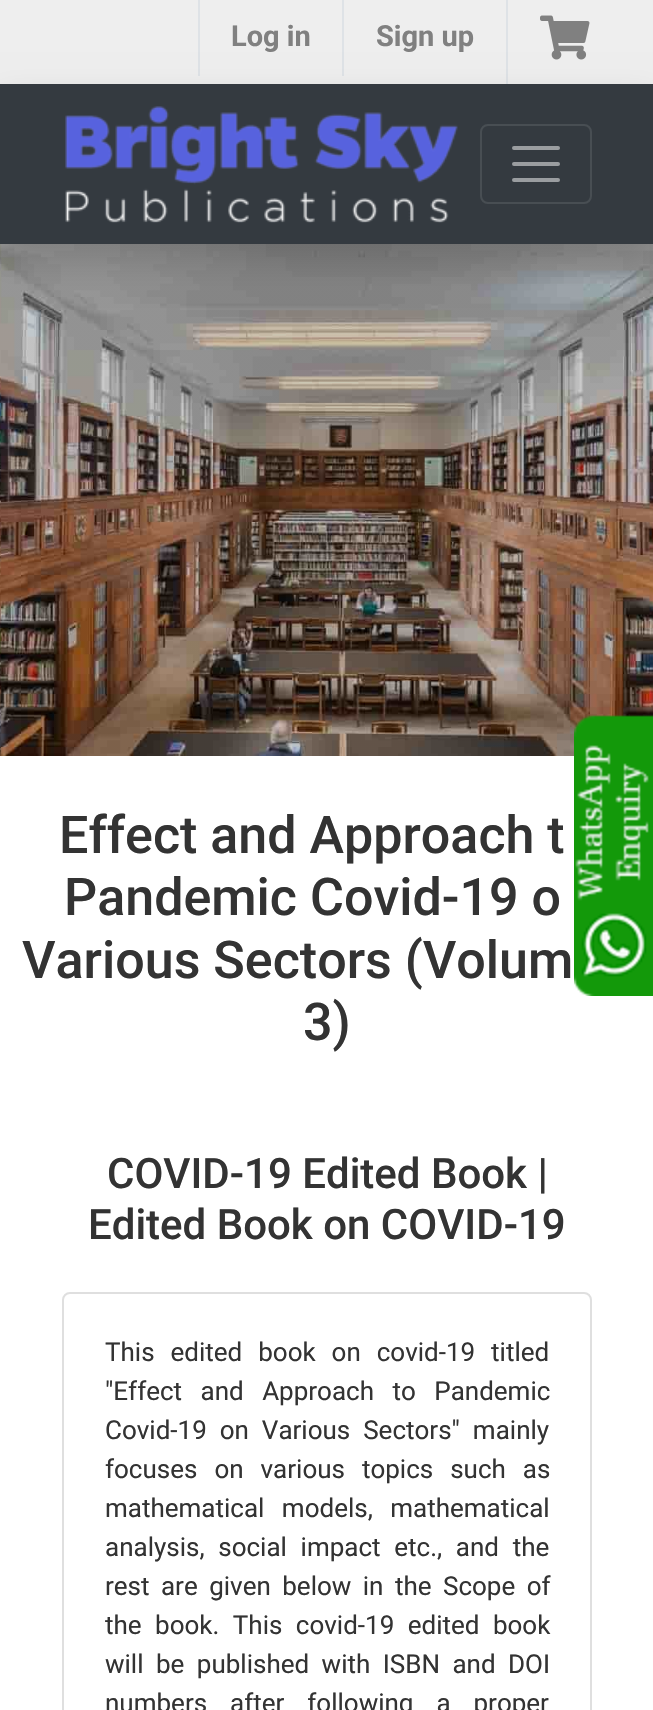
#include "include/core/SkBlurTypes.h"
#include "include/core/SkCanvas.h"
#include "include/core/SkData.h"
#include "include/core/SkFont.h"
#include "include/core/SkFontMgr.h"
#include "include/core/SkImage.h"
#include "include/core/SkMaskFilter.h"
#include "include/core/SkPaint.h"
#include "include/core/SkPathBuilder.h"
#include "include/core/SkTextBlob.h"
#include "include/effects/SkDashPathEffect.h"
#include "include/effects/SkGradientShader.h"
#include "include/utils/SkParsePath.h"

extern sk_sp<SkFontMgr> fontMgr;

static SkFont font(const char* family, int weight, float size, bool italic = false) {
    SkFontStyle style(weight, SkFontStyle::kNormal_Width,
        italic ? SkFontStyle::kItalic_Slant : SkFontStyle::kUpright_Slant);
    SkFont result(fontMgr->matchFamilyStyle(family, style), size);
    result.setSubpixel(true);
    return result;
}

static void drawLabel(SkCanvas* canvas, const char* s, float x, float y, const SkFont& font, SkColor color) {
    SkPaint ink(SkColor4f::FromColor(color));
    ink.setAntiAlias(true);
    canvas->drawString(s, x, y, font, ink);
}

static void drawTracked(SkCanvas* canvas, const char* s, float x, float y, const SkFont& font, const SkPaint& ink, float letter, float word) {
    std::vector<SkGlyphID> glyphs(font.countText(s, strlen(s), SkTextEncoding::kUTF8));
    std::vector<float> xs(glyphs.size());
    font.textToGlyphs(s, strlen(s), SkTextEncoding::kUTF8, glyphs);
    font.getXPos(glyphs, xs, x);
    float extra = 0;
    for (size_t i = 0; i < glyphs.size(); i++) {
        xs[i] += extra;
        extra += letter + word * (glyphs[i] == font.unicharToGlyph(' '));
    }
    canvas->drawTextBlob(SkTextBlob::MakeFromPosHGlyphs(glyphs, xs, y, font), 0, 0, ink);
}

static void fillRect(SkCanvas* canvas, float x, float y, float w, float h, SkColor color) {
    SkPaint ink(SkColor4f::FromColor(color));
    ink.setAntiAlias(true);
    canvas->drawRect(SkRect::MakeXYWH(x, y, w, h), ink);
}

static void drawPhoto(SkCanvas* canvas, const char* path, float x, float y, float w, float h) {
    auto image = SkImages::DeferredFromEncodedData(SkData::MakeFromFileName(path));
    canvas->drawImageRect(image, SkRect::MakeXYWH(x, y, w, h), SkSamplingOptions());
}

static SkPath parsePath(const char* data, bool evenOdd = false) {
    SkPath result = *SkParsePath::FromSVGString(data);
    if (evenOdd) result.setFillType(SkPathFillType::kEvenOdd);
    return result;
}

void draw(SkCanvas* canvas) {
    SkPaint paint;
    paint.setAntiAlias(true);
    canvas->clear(0xFFFFFFFF);
    fillRect(canvas, 0, 0, 653, 84, 0xFFEEEEEE);
    fillRect(canvas, 198, 0, 2, 76, 0xFFDEE2E6);
    SkFont font1 = font("Roboto", 700, 29);
    drawLabel(canvas, "Log in", 231, 46, font1, 0xFF808080);
    fillRect(canvas, 342, 0, 2, 76, 0xFFDEE2E6);
    drawLabel(canvas, "Sign up", 376, 46, font1, 0xFF808080);
    fillRect(canvas, 506, 0, 2, 84, 0xFFDEE2E6);
    drawPhoto(canvas, "assets/img1.png", 540, 15, 50, 45);
    drawPhoto(canvas, "assets/img3.png", 0, 244, 653, 512);
    paint.setColor(0x26000000);
    paint.setMaskFilter(SkMaskFilter::MakeBlur(kNormal_SkBlurStyle, 16));
    canvas->drawRect(SkRect::MakeXYWH(0, 100, 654, 160), paint);
    paint.setMaskFilter(nullptr);
    fillRect(canvas, 0, 84, 653, 160, 0xFF343A40);
    drawPhoto(canvas, "assets/img2.png", 65, 106, 393, 117);
    paint.setStroke(true);
    paint.setStrokeWidth(2);
    paint.setColor(0xFF484E53);
    canvas->drawRoundRect(SkRect::MakeXYWH(481, 125, 110, 78), 7, 7, paint);
    paint.setStrokeWidth(4);
    paint.setStrokeCap(SkPaint::kRound_Cap);
    paint.setColor(0xFF9A9DA0);
    canvas->drawPath(parsePath("M514 148H558M514 164H558M514 180H558"), paint);
    SkFont font2 = font("Roboto", 500, 52);
    drawLabel(canvas, "Effect and Approach t", 59, 853, font2, 0xFF333333);
    drawLabel(canvas, "Pandemic Covid-19 o", 64, 915, font2, 0xFF333333);
    drawLabel(canvas, "Various Sectors (Volum", 22, 978, font2, 0xFF333333);
    drawLabel(canvas, "3)", 303, 1040, font2, 0xFF333333);
    drawPhoto(canvas, "assets/img4.png", 574, 715, 79, 281);
    SkFont font3 = font("Roboto", 500, 42);
    drawLabel(canvas, "COVID-19 Edited Book |", 107, 1188, font3, 0xFF333333);
    drawLabel(canvas, "Edited Book on COVID-19", 88, 1239, font3, 0xFF333333);
    paint.setStrokeWidth(2);
    paint.setStrokeCap(SkPaint::kButt_Cap);
    paint.setColor(0xFFDFDFDF);
    canvas->drawRoundRect(SkRect::MakeXYWH(63, 1293, 528, 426), 7, 7, paint);
    SkFont font4 = font("Roboto", 400, 26);
    paint.setStroke(false);
    paint.setColor(0xFF333333);
    drawTracked(canvas, "This edited book on covid-19 titled", 105, 1361, font4, paint, 0, 9.5f);
    drawTracked(canvas, "\"Effect and Approach to Pandemic", 105, 1400, font4, paint, 0, 12);
    drawTracked(canvas, "Covid-19 on Various Sectors\" mainly", 105, 1439, font4, paint, 0, 6.5f);
    drawTracked(canvas, "focuses on various topics such as", 105, 1478, font4, paint, 0, 10.5f);
    drawTracked(canvas, "mathematical models, mathematical", 105, 1517, font4, paint, 0, 11);
    drawTracked(canvas, "analysis, social impact etc., and the", 105, 1556, font4, paint, 0, 7.25f);
    drawTracked(canvas, "rest are given below in the Scope of", 105, 1595, font4, paint, 0, 5);
    drawTracked(canvas, "the book. This covid-19 edited book", 105, 1634, font4, paint, 0, 7);
    drawTracked(canvas, "will be published with ISBN and DOI", 105, 1673, font4, paint, 0, 6);
    drawTracked(canvas, "numbers after following a proper", 105, 1712, font4, paint, 0, 16.5f);
}
